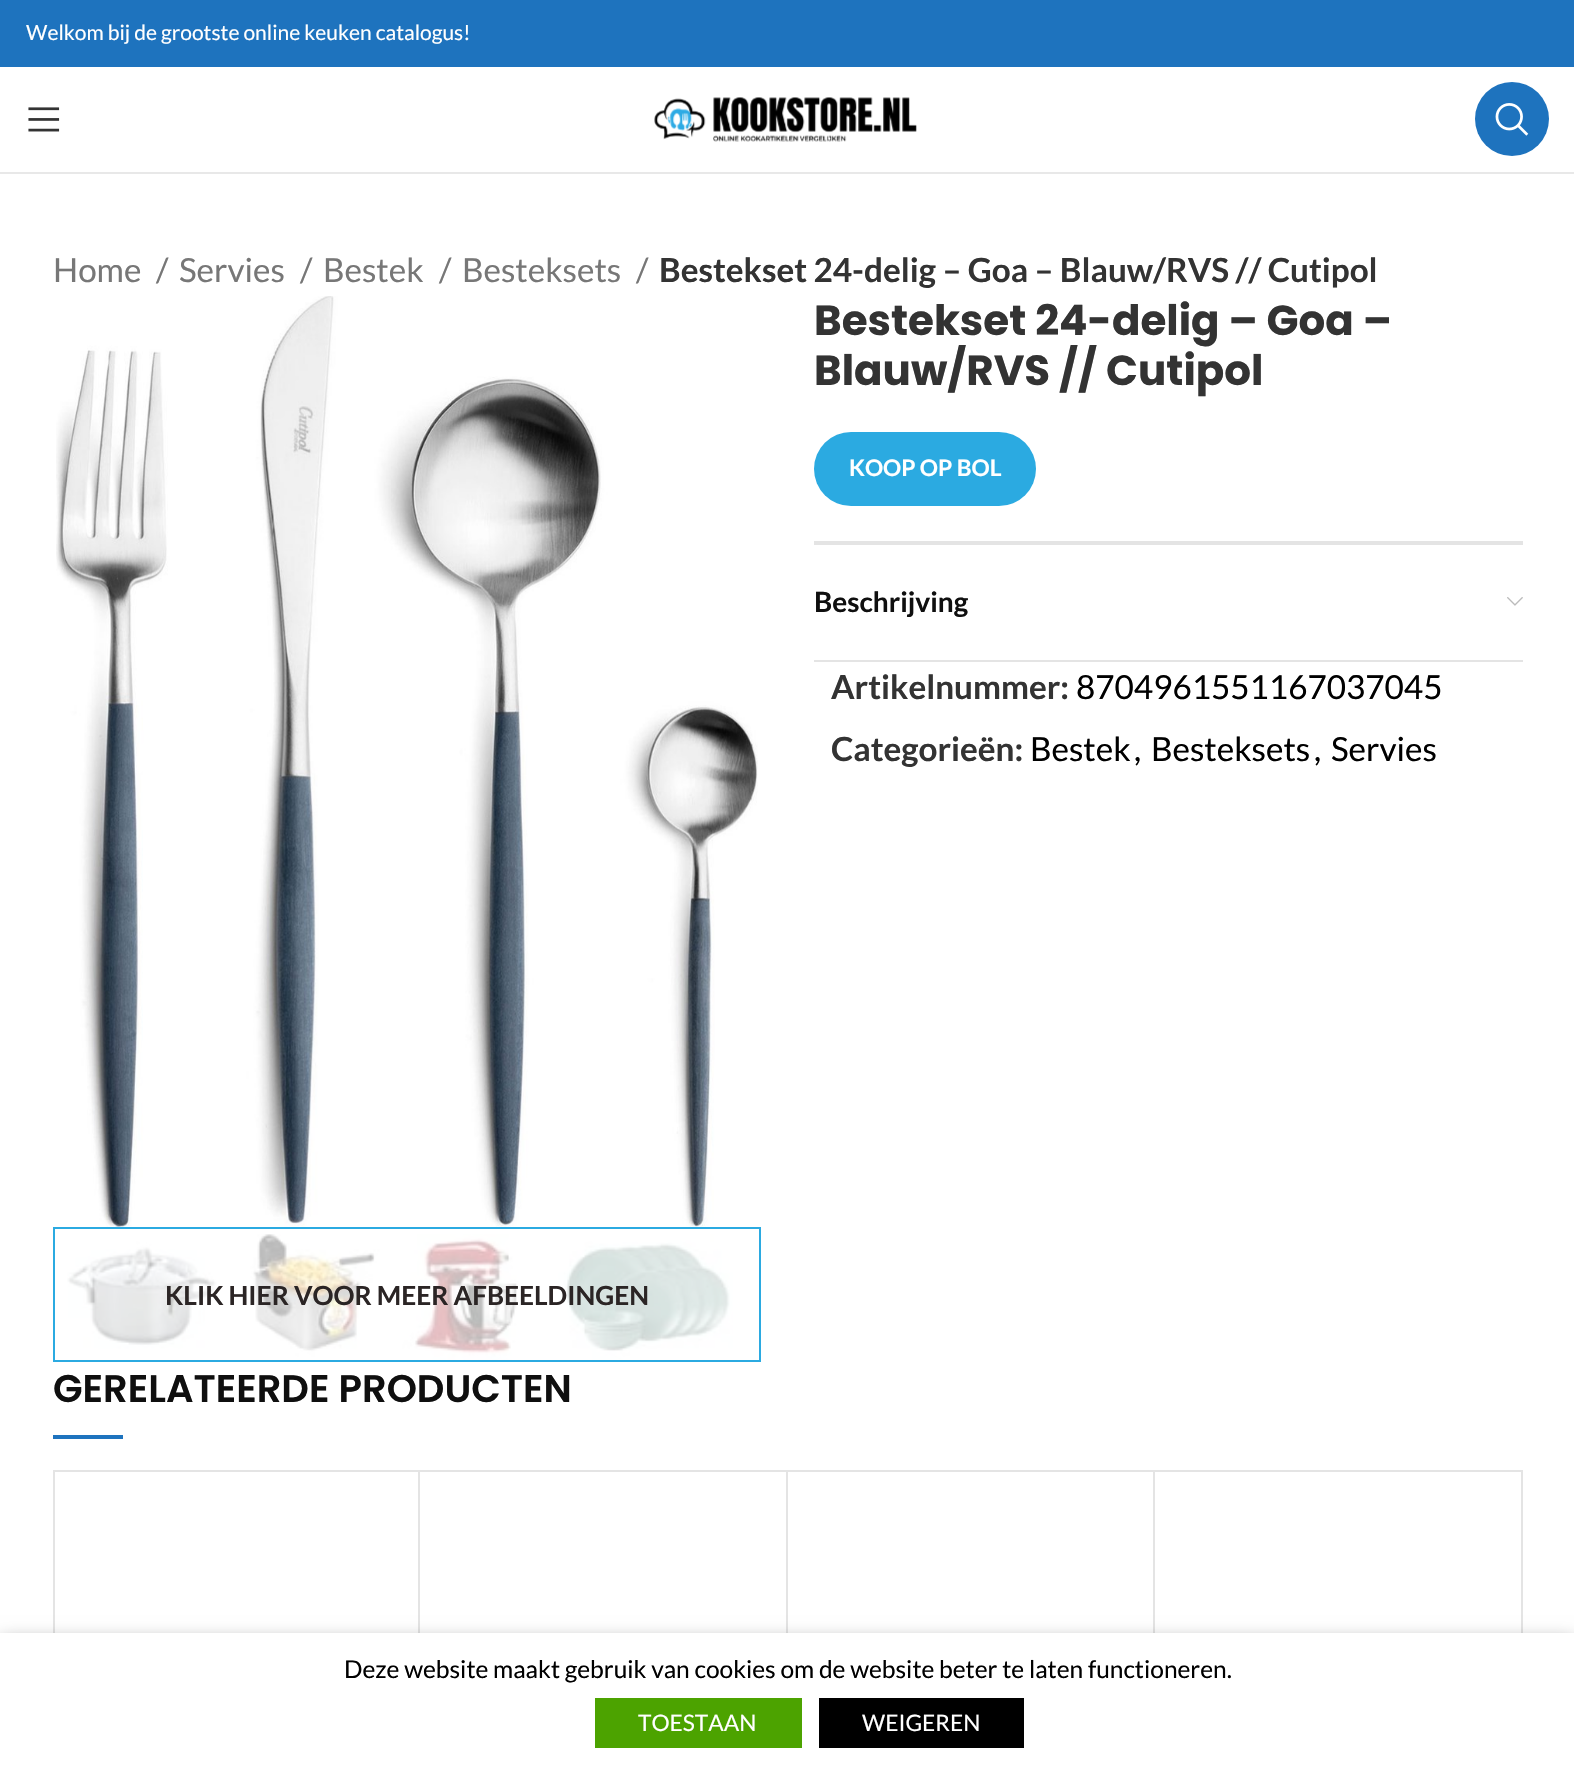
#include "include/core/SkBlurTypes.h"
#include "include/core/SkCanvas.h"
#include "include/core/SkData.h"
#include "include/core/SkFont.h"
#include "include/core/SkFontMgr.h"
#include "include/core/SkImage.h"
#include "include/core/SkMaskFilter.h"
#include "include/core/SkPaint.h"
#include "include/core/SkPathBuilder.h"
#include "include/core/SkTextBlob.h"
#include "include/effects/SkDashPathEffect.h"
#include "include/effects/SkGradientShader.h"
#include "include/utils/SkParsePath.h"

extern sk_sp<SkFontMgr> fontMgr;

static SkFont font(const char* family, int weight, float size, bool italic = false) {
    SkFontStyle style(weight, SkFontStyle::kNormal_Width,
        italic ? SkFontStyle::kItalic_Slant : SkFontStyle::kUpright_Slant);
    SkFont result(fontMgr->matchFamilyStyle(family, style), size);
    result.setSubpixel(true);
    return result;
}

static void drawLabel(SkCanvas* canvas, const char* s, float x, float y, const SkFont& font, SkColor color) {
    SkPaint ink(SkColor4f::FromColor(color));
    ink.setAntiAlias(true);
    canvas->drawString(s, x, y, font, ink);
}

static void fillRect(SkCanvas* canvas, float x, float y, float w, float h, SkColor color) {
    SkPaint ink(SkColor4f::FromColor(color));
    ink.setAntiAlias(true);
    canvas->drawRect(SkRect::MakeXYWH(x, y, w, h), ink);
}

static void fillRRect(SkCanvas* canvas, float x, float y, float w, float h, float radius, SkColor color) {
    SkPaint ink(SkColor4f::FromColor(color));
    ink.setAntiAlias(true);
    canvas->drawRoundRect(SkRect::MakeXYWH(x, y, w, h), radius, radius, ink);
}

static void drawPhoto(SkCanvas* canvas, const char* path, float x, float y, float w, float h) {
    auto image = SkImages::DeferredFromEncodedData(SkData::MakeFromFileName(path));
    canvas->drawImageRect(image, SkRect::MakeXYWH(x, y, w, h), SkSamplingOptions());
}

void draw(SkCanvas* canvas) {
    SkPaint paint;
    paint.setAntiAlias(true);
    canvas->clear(0xFFFFFFFF);
    fillRect(canvas, 0, 0, 1574, 67, 0xFF1E73BE);
    SkFont font1 = font("Lato", 400, 21);
    drawLabel(canvas, "Welkom bij de grootste online keuken catalogus!", 26, 40, font1, 0xFFFFFFFF);
    fillRect(canvas, 0, 172, 1574, 2, 0xFFE8E8E8);
    drawPhoto(canvas, "assets/img1.png", 28, 107, 32, 25);
    drawPhoto(canvas, "assets/img2.png", 654, 97, 263, 45);
    paint.setColor(0xFF1E73BE);
    canvas->drawCircle(1512, 119, 37, paint);
    drawPhoto(canvas, "assets/img3.png", 1495, 103, 34, 33);
    SkFont font2 = font("Lato", 400, 33.25f);
    drawLabel(canvas, "Home", 53, 282, font2, 0xFF777777);
    drawLabel(canvas, "/", 156, 282, font2, 0xFF777777);
    drawLabel(canvas, "Servies", 179, 282, font2, 0xFF777777);
    drawLabel(canvas, "/", 300, 282, font2, 0xFF777777);
    drawLabel(canvas, "Bestek", 323, 282, font2, 0xFF777777);
    drawLabel(canvas, "/", 439, 282, font2, 0xFF777777);
    drawLabel(canvas, "Besteksets", 462, 282, font2, 0xFF777777);
    drawLabel(canvas, "/", 636, 282, font2, 0xFF777777);
    SkFont font3 = font("Lato", 700, 33.25f);
    drawLabel(canvas, "Bestekset 24-delig – Goa – Blauw/RVS // Cutipol", 659, 282, font3, 0xFF333333);
    SkFont font4 = font("Poppins", 700, 42);
    drawLabel(canvas, "Bestekset 24-delig – Goa –", 814, 335, font4, 0xFF333333);
    drawLabel(canvas, "Blauw/RVS // Cutipol", 814, 385, font4, 0xFF333333);
    fillRRect(canvas, 814, 432, 222, 74, 37, 0xFF2BAAE1);
    SkFont font5 = font("Lato", 700, 22.75f);
    drawLabel(canvas, "KOOP OP BOL", 849, 476, font5, 0xFFFFFFFF);
    fillRect(canvas, 814, 541, 709, 4, 0xFFE4E4E4);
    fillRect(canvas, 814, 660, 709, 2, 0xFFE4E4E4);
    SkFont font6 = font("Lato", 700, 28);
    drawLabel(canvas, "Beschrijving", 814, 612, font6, 0xFF0F0F0F);
    drawPhoto(canvas, "assets/img4.png", 1507, 597, 16, 9);
    drawLabel(canvas, "Artikelnummer:", 831, 699, font3, 0xFF333333);
    drawLabel(canvas, "8704961551167037045", 1076, 699, font2, 0xFF000000);
    drawLabel(canvas, "Categorieën:", 831, 761, font3, 0xFF333333);
    drawLabel(canvas, "Bestek", 1030, 761, font2, 0xFF000000);
    drawLabel(canvas, ",", 1134, 761, font2, 0xFF000000);
    drawLabel(canvas, "Besteksets", 1151, 761, font2, 0xFF000000);
    drawLabel(canvas, ",", 1314, 761, font2, 0xFF000000);
    drawLabel(canvas, "Servies", 1331, 761, font2, 0xFF000000);
    drawPhoto(canvas, "assets/img5.png", 56, 296, 702, 931);
    drawPhoto(canvas, "assets/img6.png", 67, 1234, 666, 126);
    paint.setStroke(true);
    paint.setStrokeWidth(2);
    paint.setColor(0xFF2BAAE1);
    canvas->drawRect(SkRect::MakeXYWH(54, 1228, 706, 133), paint);
    SkFont font7 = font("Lato", 700, 26.25f);
    drawLabel(canvas, "KLIK HIER VOOR MEER AFBEELDINGEN", 165, 1305, font7, 0xFF2B2525);
    SkFont font8 = font("Poppins", 600, 38.5f);
    drawLabel(canvas, "GERELATEERDE PRODUCTEN", 53, 1402, font8, 0xFF0F0F0F);
    fillRect(canvas, 53, 1435, 70, 4, 0xFF1E73BE);
    fillRect(canvas, 53, 1470, 1470, 2, 0xFFE4E4E4);
    fillRect(canvas, 53, 1472, 2, 161, 0xFFE4E4E4);
    fillRect(canvas, 418, 1472, 2, 161, 0xFFE4E4E4);
    fillRect(canvas, 786, 1472, 2, 161, 0xFFE4E4E4);
    fillRect(canvas, 1153, 1472, 2, 161, 0xFFE4E4E4);
    fillRect(canvas, 1521, 1472, 2, 161, 0xFFE4E4E4);
    paint.setStroke(false);
    paint.setColor(0x80000000);
    paint.setMaskFilter(SkMaskFilter::MakeBlur(kNormal_SkBlurStyle, 9));
    canvas->drawRect(SkRect::MakeXYWH(0, 1642, 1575, 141), paint);
    paint.setMaskFilter(nullptr);
    fillRect(canvas, 0, 1633, 1574, 140, 0xFFFFFFFF);
    SkFont font9 = font("Lato", 400, 24.5f);
    drawLabel(canvas, "Deze website maakt gebruik van cookies om de website beter te laten functioneren.", 344, 1678, font9, 0xFF000000);
    fillRect(canvas, 595, 1698, 207, 50, 0xFF4CA300);
    SkFont font10 = font("Lato", 400, 22.75f);
    drawLabel(canvas, "TOESTAAN", 638, 1731, font10, 0xFFFFFFFF);
    fillRect(canvas, 819, 1698, 205, 50, 0xFF000000);
    drawLabel(canvas, "WEIGEREN", 862, 1731, font10, 0xFFFFFFFF);
}
